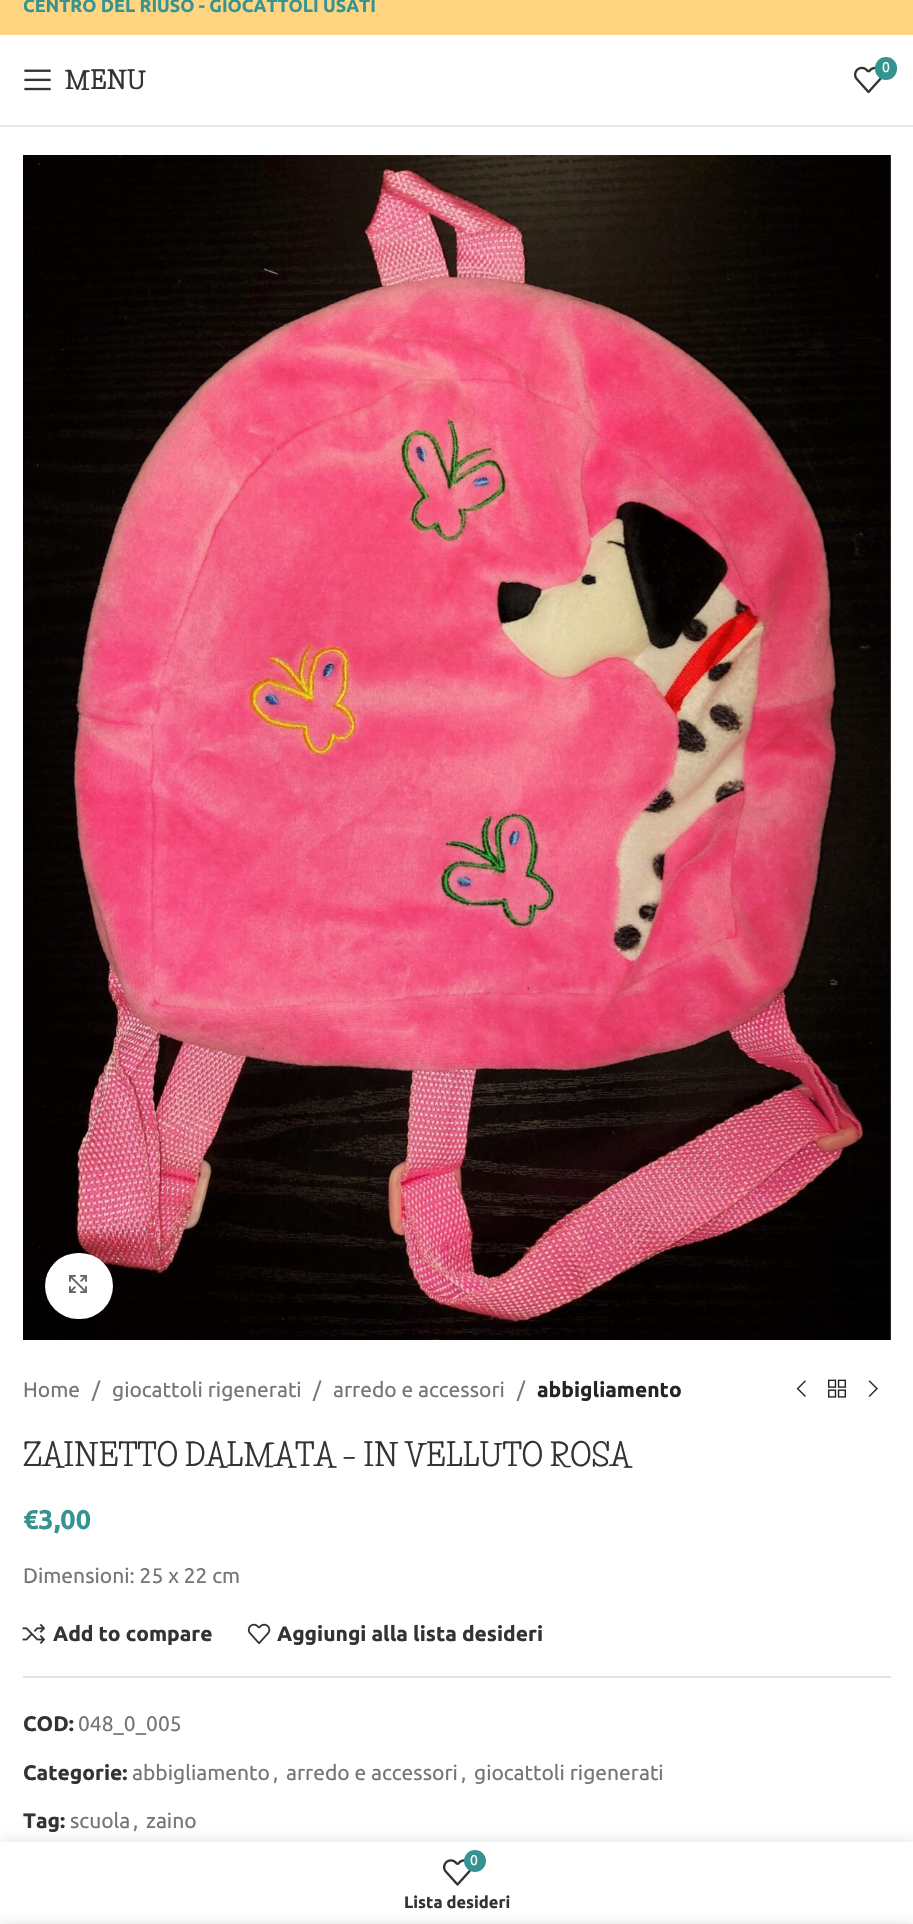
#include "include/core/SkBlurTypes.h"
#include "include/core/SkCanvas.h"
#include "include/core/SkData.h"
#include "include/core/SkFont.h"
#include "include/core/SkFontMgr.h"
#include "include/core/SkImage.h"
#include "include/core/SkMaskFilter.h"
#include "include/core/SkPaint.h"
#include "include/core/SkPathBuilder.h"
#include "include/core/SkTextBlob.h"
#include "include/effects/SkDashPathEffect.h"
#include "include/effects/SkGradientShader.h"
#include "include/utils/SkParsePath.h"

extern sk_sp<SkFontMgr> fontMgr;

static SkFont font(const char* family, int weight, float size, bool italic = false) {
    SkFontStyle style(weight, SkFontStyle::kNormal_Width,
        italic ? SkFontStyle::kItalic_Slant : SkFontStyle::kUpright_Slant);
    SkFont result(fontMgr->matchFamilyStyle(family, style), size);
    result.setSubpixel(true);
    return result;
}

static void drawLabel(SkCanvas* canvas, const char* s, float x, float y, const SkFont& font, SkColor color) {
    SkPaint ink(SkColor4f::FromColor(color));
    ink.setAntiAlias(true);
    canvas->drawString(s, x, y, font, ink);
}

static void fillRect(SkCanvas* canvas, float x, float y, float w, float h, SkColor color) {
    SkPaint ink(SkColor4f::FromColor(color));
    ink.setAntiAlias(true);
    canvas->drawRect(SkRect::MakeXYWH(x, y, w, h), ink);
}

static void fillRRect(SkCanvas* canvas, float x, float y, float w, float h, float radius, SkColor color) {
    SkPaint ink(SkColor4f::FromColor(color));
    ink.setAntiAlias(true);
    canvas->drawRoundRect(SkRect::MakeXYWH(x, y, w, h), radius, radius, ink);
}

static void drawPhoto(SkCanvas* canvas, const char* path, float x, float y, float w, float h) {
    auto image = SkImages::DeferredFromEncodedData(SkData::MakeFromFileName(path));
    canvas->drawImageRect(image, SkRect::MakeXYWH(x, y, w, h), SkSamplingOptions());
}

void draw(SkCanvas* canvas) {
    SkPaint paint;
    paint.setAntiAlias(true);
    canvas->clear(0xFFFFFFFF);
    fillRect(canvas, 0, 0, 913, 35, 0xFFFFD581);
    SkFont font1 = font("Ubuntu", 700, 18);
    drawLabel(canvas, "CENTRO DEL RIUSO - GIOCATTOLI USATI", 23, 12, font1, 0xFF359392);
    fillRect(canvas, 0, 125, 913, 2, 0xFFE8E8E8);
    drawPhoto(canvas, "assets/img1.png", 854, 66, 28, 27);
    fillRRect(canvas, 875, 57, 22, 23, 11, 0xFF359392);
    SkFont font2 = font("Ubuntu", 400, 14);
    drawLabel(canvas, "0", 882, 72, font2, 0xFFFFFFFF);
    drawPhoto(canvas, "assets/img2.png", 24, 69, 27, 22);
    SkFont font3 = font("Life Savers", 800, 24);
    drawLabel(canvas, "MENU", 65, 89, font3, 0xFF333333);
    drawPhoto(canvas, "assets/img3.png", 23, 155, 868, 1185);
    fillRRect(canvas, 45, 1253, 68, 66, 33, 0xFFFFFFFF);
    drawPhoto(canvas, "assets/img4.png", 69, 1275, 18, 18);
    SkFont font4 = font("Ubuntu", 400, 21);
    drawLabel(canvas, "Home", 23, 1397, font4, 0xFF767676);
    drawLabel(canvas, "/", 92, 1397, font4, 0xFF767676);
    drawLabel(canvas, "giocattoli rigenerati", 112, 1397, font4, 0xFF767676);
    drawLabel(canvas, "/", 313, 1397, font4, 0xFF767676);
    drawLabel(canvas, "arredo e accessori", 333, 1397, font4, 0xFF767676);
    drawLabel(canvas, "/", 517, 1397, font4, 0xFF767676);
    SkFont font5 = font("Ubuntu", 700, 21);
    drawLabel(canvas, "abbigliamento", 537, 1397, font5, 0xFF242424);
    drawPhoto(canvas, "assets/img5.png", 796, 1380, 10, 17);
    drawPhoto(canvas, "assets/img6.png", 828, 1379, 18, 19);
    drawPhoto(canvas, "assets/img7.png", 868, 1380, 10, 17);
    SkFont font6 = font("Life Savers", 700, 30);
    drawLabel(canvas, "ZAINETTO DALMATA – IN VELLUTO ROSA", 23, 1466, font6, 0xFF333333);
    SkFont font7 = font("Ubuntu", 700, 27);
    drawLabel(canvas, "€3,00", 23, 1529, font7, 0xFF359392);
    drawLabel(canvas, "Dimensioni: 25 x 22 cm", 23, 1583, font4, 0xFF767676);
    drawPhoto(canvas, "assets/img8.png", 22, 1623, 24, 21);
    drawLabel(canvas, "Add to compare", 53, 1641, font5, 0xFF333333);
    drawPhoto(canvas, "assets/img9.png", 247, 1623, 24, 21);
    drawLabel(canvas, "Aggiungi alla lista desideri", 277, 1641, font5, 0xFF333333);
    fillRect(canvas, 23, 1676, 868, 2, 0xFFE4E4E4);
    drawLabel(canvas, "COD:", 23, 1731, font5, 0xFF333333);
    drawLabel(canvas, "048_0_005", 78, 1731, font4, 0xFF767676);
    drawLabel(canvas, "Categorie:", 23, 1780, font5, 0xFF333333);
    drawLabel(canvas, "abbigliamento", 132, 1780, font4, 0xFF767676);
    drawLabel(canvas, ",", 273, 1780, font4, 0xFF767676);
    drawLabel(canvas, "arredo e accessori", 286, 1780, font4, 0xFF767676);
    drawLabel(canvas, ",", 461, 1780, font4, 0xFF767676);
    drawLabel(canvas, "giocattoli rigenerati", 474, 1780, font4, 0xFF767676);
    drawLabel(canvas, "Tag:", 23, 1828, font5, 0xFF333333);
    drawLabel(canvas, "scuola", 70, 1828, font4, 0xFF767676);
    drawLabel(canvas, ",", 133, 1828, font4, 0xFF767676);
    drawLabel(canvas, "zaino", 146, 1828, font4, 0xFF767676);
    paint.setColor(0x1F000000);
    paint.setMaskFilter(SkMaskFilter::MakeBlur(kNormal_SkBlurStyle, 7));
    canvas->drawRect(SkRect::MakeXYWH(0, 1842, 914, 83), paint);
    paint.setMaskFilter(nullptr);
    fillRect(canvas, 0, 1842, 913, 82, 0xFFFFFFFF);
    drawPhoto(canvas, "assets/img10.png", 443, 1859, 28, 27);
    paint.setColor(0xFF359392);
    canvas->drawCircle(475, 1861, 11, paint);
    drawLabel(canvas, "0", 470, 1865, font2, 0xFFFFFFFF);
    SkFont font8 = font("Ubuntu", 700, 16.5f);
    drawLabel(canvas, "Lista desideri", 404, 1908, font8, 0xFF333333);
    paint.setColor(0x24000000);
    paint.setMaskFilter(SkMaskFilter::MakeBlur(kNormal_SkBlurStyle, 7));
    canvas->drawRect(SkRect::MakeXYWH(0, 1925, 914, 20), paint);
    paint.setMaskFilter(nullptr);
}
